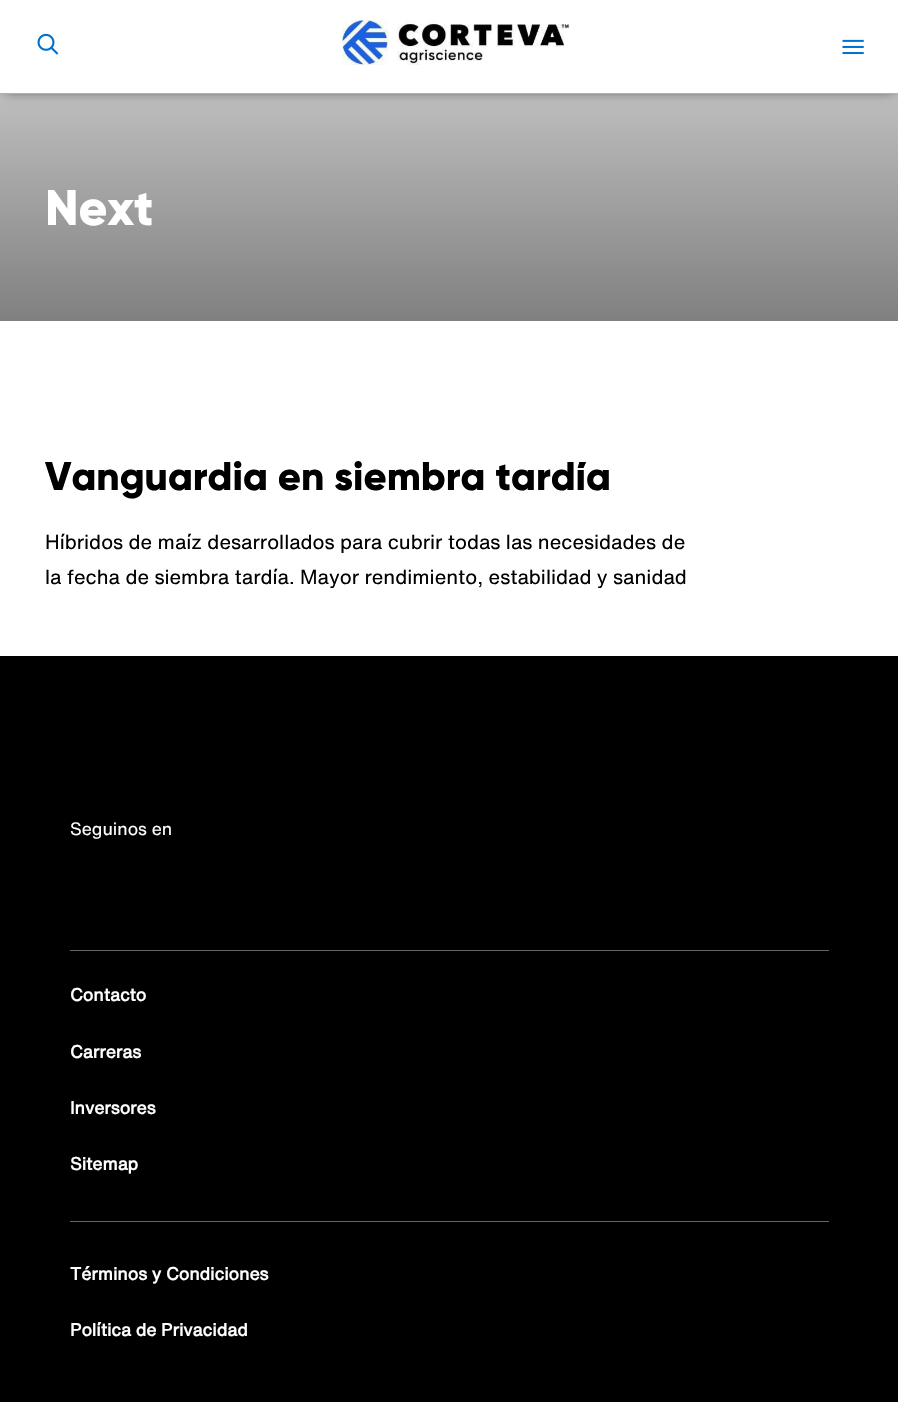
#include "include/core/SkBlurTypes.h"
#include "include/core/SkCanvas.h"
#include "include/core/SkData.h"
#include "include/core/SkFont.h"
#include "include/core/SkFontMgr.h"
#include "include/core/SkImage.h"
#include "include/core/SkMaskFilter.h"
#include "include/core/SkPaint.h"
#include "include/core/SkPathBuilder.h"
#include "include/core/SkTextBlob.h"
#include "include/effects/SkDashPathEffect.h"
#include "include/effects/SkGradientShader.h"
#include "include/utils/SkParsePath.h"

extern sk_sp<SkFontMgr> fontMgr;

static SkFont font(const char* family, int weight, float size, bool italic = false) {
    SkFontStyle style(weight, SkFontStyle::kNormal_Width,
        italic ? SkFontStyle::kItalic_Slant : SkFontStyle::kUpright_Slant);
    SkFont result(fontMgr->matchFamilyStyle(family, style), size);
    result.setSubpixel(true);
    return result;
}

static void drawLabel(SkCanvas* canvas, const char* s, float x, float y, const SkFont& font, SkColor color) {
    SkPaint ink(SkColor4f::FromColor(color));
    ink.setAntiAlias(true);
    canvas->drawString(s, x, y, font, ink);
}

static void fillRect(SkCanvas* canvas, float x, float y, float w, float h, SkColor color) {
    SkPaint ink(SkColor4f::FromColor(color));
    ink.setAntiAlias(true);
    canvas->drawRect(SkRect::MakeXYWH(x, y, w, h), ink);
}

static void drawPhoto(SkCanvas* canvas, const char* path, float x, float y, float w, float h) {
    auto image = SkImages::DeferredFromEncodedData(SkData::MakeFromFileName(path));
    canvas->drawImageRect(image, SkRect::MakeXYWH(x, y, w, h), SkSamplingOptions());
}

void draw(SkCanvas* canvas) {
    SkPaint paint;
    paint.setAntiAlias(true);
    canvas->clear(0xFFFFFFFF);
    {
        const SkColor colors[] = {0xFF808080, 0xFFFFFFFF};
        const float stops[] = {0, 1};
        const SkPoint ends[] = {{449, 321}, {449, -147}};
        paint.setShader(SkGradientShader::MakeLinear(ends, colors, stops, 2, SkTileMode::kClamp));
        paint.setAlpha(255);
    }
    canvas->drawRect(SkRect::MakeXYWH(0, 94, 898, 227), paint);
    paint.setShader(nullptr);
    paint.setColor(0xBF000000);
    paint.setMaskFilter(SkMaskFilter::MakeBlur(kNormal_SkBlurStyle, 6));
    canvas->drawRect(SkRect::MakeXYWH(5, 6, 889, 84), paint);
    paint.setMaskFilter(nullptr);
    fillRect(canvas, 0, 0, 898, 93, 0xFFFFFFFF);
    fillRect(canvas, 0, 93, 898, 1, 0xFFA9B3BD);
    drawPhoto(canvas, "assets/img1.png", 37, 33, 22, 22);
    drawPhoto(canvas, "assets/img2.png", 342, 20, 227, 45);
    drawPhoto(canvas, "assets/img3.png", 842, 39, 22, 16);
    SkFont font1 = font("Gilroy", 800, 50);
    drawLabel(canvas, "Next", 45, 225, font1, 0xFFFFFFFF);
    SkFont font2 = font("Gilroy", 800, 40);
    drawLabel(canvas, "Vanguardia en siembra tardía", 45, 490, font2, 0xFF000000);
    SkFont font3 = font("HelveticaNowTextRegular", 400, 20);
    drawLabel(canvas, "Híbridos de maíz desarrollados para cubrir todas las necesidades de", 45, 549, font3, 0xFF000000);
    drawLabel(canvas, "la fecha de siembra tardía. Mayor rendimiento, estabilidad y sanidad", 45, 584, font3, 0xFF000000);
    fillRect(canvas, 0, 656, 898, 746, 0xFF000000);
    SkFont font4 = font("HelveticaNowTextRegular", 400, 17.5f);
    drawLabel(canvas, "Seguinos en", 70, 835, font4, 0xFFFFFFFF);
    fillRect(canvas, 70, 950, 759, 1, 0xFF666666);
    fillRect(canvas, 70, 1221, 759, 1, 0xFF666666);
    SkFont font5 = font("HelveticaNowTextRegular", 700, 17.5f);
    drawLabel(canvas, "Contacto", 70, 1001, font5, 0xFFFFFFFF);
    drawLabel(canvas, "Carreras", 70, 1058, font5, 0xFFFFFFFF);
    drawLabel(canvas, "Inversores", 70, 1114, font5, 0xFFFFFFFF);
    drawLabel(canvas, "Sitemap", 70, 1170, font5, 0xFFFFFFFF);
    drawLabel(canvas, "Términos y Condiciones", 70, 1280, font5, 0xFFFFFFFF);
    drawLabel(canvas, "Política de Privacidad", 70, 1336, font5, 0xFFFFFFFF);
}
